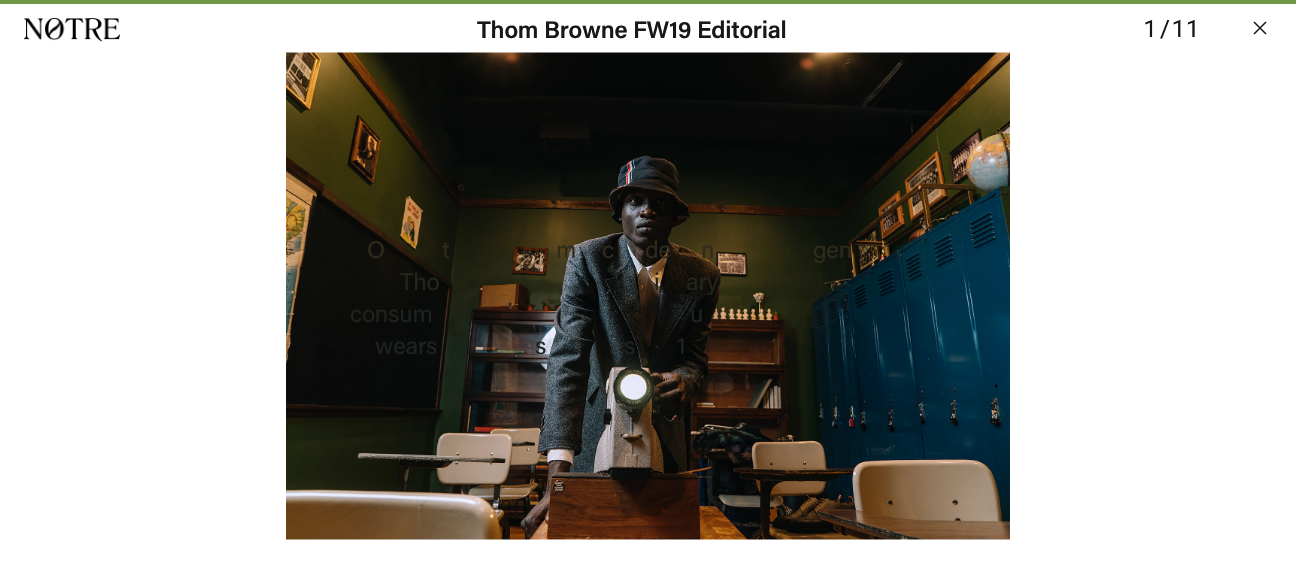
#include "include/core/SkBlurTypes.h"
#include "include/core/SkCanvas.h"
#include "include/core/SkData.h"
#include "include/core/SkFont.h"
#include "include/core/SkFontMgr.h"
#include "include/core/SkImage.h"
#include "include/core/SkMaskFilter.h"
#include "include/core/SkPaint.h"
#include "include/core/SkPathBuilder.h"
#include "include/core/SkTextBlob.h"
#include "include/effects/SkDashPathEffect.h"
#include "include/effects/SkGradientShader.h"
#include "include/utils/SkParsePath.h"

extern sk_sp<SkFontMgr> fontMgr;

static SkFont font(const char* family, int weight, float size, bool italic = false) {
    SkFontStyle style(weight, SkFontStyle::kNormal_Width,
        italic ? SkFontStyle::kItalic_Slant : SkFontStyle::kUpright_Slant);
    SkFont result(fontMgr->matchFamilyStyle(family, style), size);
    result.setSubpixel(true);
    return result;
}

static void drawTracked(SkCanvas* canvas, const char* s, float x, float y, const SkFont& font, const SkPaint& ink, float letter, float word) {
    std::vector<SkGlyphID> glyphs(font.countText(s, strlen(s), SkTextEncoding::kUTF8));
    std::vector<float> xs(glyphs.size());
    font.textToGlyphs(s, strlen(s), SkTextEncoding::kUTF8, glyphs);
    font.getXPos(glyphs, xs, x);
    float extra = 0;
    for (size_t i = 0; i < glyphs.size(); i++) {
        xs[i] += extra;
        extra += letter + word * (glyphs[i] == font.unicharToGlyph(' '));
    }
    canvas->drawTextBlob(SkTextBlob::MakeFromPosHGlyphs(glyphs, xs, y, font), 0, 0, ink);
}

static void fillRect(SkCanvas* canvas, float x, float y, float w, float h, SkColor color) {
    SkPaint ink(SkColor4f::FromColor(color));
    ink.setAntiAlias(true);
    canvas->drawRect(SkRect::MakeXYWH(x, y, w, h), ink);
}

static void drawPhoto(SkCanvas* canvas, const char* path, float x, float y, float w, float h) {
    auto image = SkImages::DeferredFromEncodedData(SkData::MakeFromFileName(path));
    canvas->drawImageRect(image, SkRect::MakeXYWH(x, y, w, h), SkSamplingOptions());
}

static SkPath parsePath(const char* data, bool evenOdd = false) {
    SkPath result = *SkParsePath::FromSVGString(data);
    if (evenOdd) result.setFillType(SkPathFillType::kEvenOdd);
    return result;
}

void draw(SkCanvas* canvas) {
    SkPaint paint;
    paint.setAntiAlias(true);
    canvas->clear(0xFFFFFFFF);
    fillRect(canvas, 0, 0, 1296, 4, 0xFF71994C);
    drawPhoto(canvas, "assets/img1.png", 24, 18, 96, 24);
    SkFont font1 = font("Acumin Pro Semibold", 600, 24);
    paint.setColor(0xFF181818);
    drawTracked(canvas, "Thom Browne FW19 Editorial", 477, 38, font1, paint, -0.25f, 0);
    SkFont font2 = font("Roboto Mono", 400, 24);
    drawTracked(canvas, "1/11", 1143, 37, font2, paint, -0.25f, 0);
    paint.setStroke(true);
    paint.setStrokeWidth(1.5f);
    paint.setStrokeCap(SkPaint::kSquare_Cap);
    canvas->drawPath(parsePath("M1254.5 22.5L1265.5 33.5M1254.5 33.5L1265.5 22.5"), paint);
    drawPhoto(canvas, "assets/img2.png", 286, 52, 724, 488);
    SkFont font3 = font("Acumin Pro", 400, 24);
    paint.setStroke(false);
    paint.setColor(0xFF2E2A1C);
    drawTracked(canvas, "O", 367, 258, font3, paint, -0.25f, 0);
    drawTracked(canvas, "t", 442, 258, font3, paint, -0.25f, 0);
    drawTracked(canvas, "m", 556, 258, font3, paint, -0.25f, 0);
    drawTracked(canvas, "c", 602, 258, font3, paint, -0.25f, 0);
    drawTracked(canvas, "de", 645, 258, font3, paint, -0.25f, 0);
    drawTracked(canvas, "n", 701, 258, font3, paint, -0.25f, 0);
    drawTracked(canvas, "gen", 813, 258, font3, paint, -0.25f, 0);
    paint.setColor(0xFF24251A);
    drawTracked(canvas, "Tho", 400, 290, font3, paint, -0.25f, 0);
    drawTracked(canvas, "i", 654, 290, font3, paint, -0.25f, 0);
    drawTracked(canvas, "ary", 686, 290, font3, paint, -0.25f, 0);
    paint.setColor(0xFF1E2320);
    drawTracked(canvas, "consum", 350, 322, font3, paint, -0.25f, 0);
    drawTracked(canvas, "u", 690, 322, font3, paint, -0.25f, 0);
    drawTracked(canvas, "wears", 375, 354, font3, paint, -0.25f, 0);
    drawTracked(canvas, "s", 535, 354, font3, paint, -0.25f, 0);
    drawTracked(canvas, "s", 624, 354, font3, paint, -0.25f, 0);
    drawTracked(canvas, "1", 677, 354, font3, paint, -0.25f, 0);
}
